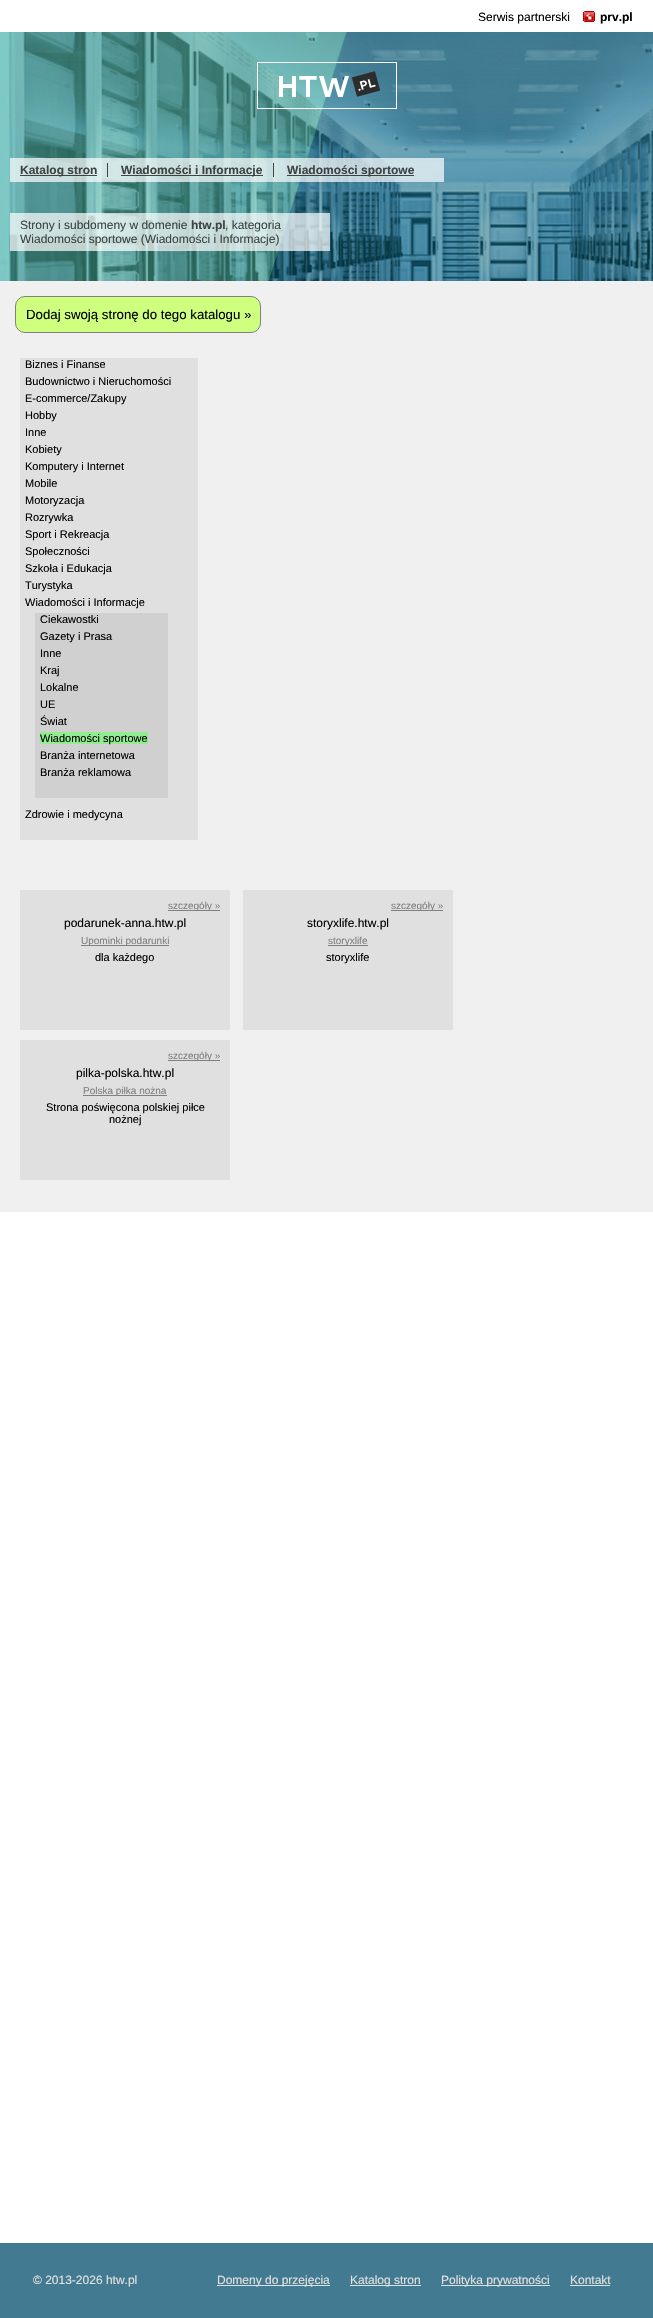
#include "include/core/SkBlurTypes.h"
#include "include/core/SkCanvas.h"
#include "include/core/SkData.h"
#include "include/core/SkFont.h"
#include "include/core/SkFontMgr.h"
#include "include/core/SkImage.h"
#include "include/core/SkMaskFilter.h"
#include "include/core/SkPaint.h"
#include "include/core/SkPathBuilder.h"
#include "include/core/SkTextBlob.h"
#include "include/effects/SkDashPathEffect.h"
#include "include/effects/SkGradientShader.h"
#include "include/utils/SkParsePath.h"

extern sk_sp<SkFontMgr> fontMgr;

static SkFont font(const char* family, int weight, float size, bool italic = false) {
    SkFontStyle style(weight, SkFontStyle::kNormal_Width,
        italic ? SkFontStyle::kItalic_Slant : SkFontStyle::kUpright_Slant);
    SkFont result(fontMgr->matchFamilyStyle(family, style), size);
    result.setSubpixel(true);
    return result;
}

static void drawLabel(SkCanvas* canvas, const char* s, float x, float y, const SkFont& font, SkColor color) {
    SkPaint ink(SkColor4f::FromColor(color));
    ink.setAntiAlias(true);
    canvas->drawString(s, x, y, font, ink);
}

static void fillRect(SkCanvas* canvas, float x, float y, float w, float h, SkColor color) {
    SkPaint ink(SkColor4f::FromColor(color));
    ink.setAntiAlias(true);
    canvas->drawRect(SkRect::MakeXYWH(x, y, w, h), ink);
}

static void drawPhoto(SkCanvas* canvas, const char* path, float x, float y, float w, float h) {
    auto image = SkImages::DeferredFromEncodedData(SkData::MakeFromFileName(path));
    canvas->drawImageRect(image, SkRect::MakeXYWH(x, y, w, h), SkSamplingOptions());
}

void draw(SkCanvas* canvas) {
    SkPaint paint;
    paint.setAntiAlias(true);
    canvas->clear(0xFFFFFFFF);
    SkFont font1 = font("Liberation Sans", 400, 12);
    drawLabel(canvas, "Serwis partnerski", 478, 21, font1, 0xFF000000);
    drawPhoto(canvas, "assets/img1.png", 583, 11, 12, 11);
    SkFont font2 = font("Liberation Sans", 700, 12);
    drawLabel(canvas, "prv.pl", 600, 21, font2, 0xFF000000);
    drawPhoto(canvas, "assets/img2.png", 0, 32, 653, 105);
    drawPhoto(canvas, "assets/img3.png", 257, 62, 140, 47);
    fillRect(canvas, 0, 281, 653, 931, 0xFFF0F0F0);
    drawPhoto(canvas, "assets/img4.png", 0, 137, 653, 144);
    fillRect(canvas, 10, 158, 434, 24, 0xB3FFFFFF);
    fillRect(canvas, 107, 163, 1, 14, 0xB3000000);
    fillRect(canvas, 20, 175, 77, 1, 0xB3000000);
    drawLabel(canvas, "Katalog stron", 20, 174, font2, 0xFF3D4342);
    fillRect(canvas, 273, 163, 1, 14, 0xFF3F4545);
    fillRect(canvas, 121, 175, 142, 1, 0xB3000000);
    drawLabel(canvas, "Wiadomości i Informacje", 121, 174, font2, 0xFF3D4342);
    fillRect(canvas, 287, 175, 127, 1, 0xB3000000);
    drawLabel(canvas, "Wiadomości sportowe", 287, 174, font2, 0xFF3D4342);
    fillRect(canvas, 10, 213, 320, 38, 0xB3FFFFFF);
    drawLabel(canvas, "Strony i subdomeny w domenie", 20, 229, font1, 0xFF3D4342);
    drawLabel(canvas, "htw.pl", 191, 229, font2, 0xFF3D4342);
    drawLabel(canvas, ", kategoria", 225, 229, font1, 0xFF3D4342);
    drawLabel(canvas, "Wiadomości sportowe (Wiadomości i Informacje)", 20, 243, font1, 0xFF3D4342);
    paint.setColor(0xFFCFFF7F);
    canvas->drawRoundRect(SkRect::MakeXYWH(15.5f, 296.5f, 245, 36), 9.5f, 9.5f, paint);
    paint.setStroke(true);
    paint.setStrokeWidth(1);
    paint.setColor(0xFF808080);
    canvas->drawRoundRect(SkRect::MakeXYWH(15.5f, 296.5f, 245, 36), 9.5f, 9.5f, paint);
    SkFont font3 = font("Liberation Sans", 400, 13.25f);
    drawLabel(canvas, "Dodaj swoją stronę do tego katalogu »", 26, 319, font3, 0xFF000000);
    fillRect(canvas, 20, 358, 178, 482, 0xFFE0E0E0);
    SkFont font4 = font("Liberation Sans", 400, 11);
    drawLabel(canvas, "Biznes i Finanse", 25, 368, font4, 0xFF000000);
    drawLabel(canvas, "Budownictwo i Nieruchomości", 25, 385, font4, 0xFF000000);
    drawLabel(canvas, "E-commerce/Zakupy", 25, 402, font4, 0xFF000000);
    drawLabel(canvas, "Hobby", 25, 419, font4, 0xFF000000);
    drawLabel(canvas, "Inne", 25, 436, font4, 0xFF000000);
    drawLabel(canvas, "Kobiety", 25, 453, font4, 0xFF000000);
    drawLabel(canvas, "Komputery i Internet", 25, 470, font4, 0xFF000000);
    drawLabel(canvas, "Mobile", 25, 487, font4, 0xFF000000);
    drawLabel(canvas, "Motoryzacja", 25, 504, font4, 0xFF000000);
    drawLabel(canvas, "Rozrywka", 25, 521, font4, 0xFF000000);
    drawLabel(canvas, "Sport i Rekreacja", 25, 538, font4, 0xFF000000);
    drawLabel(canvas, "Społeczności", 25, 555, font4, 0xFF000000);
    drawLabel(canvas, "Szkoła i Edukacja", 25, 572, font4, 0xFF000000);
    drawLabel(canvas, "Turystyka", 25, 589, font4, 0xFF000000);
    drawLabel(canvas, "Wiadomości i Informacje", 25, 606, font4, 0xFF000000);
    fillRect(canvas, 35, 613, 133, 185, 0xFFD0D0D0);
    drawLabel(canvas, "Ciekawostki", 40, 623, font4, 0xFF000000);
    drawLabel(canvas, "Gazety i Prasa", 40, 640, font4, 0xFF000000);
    drawLabel(canvas, "Inne", 40, 657, font4, 0xFF000000);
    drawLabel(canvas, "Kraj", 40, 674, font4, 0xFF000000);
    drawLabel(canvas, "Lokalne", 40, 691, font4, 0xFF000000);
    drawLabel(canvas, "UE", 40, 708, font4, 0xFF000000);
    drawLabel(canvas, "Świat", 40, 725, font4, 0xFF000000);
    fillRect(canvas, 40, 732, 108, 12, 0xFF90EE90);
    drawLabel(canvas, "Wiadomości sportowe", 40, 742, font4, 0xFF000000);
    drawLabel(canvas, "Branża internetowa", 40, 759, font4, 0xFF000000);
    drawLabel(canvas, "Branża reklamowa", 40, 776, font4, 0xFF000000);
    drawLabel(canvas, "Zdrowie i medycyna", 25, 818, font4, 0xFF000000);
    fillRect(canvas, 20, 890, 210, 140, 0xFFE0E0E0);
    fillRect(canvas, 168, 910, 52, 1, 0xFF808080);
    SkFont font5 = font("Liberation Sans", 400, 10);
    drawLabel(canvas, "szczegóły »", 168, 909, font5, 0xFF808080);
    drawLabel(canvas, "podarunek-anna.htw.pl", 64, 927, font1, 0xFF000000);
    fillRect(canvas, 81, 945, 88, 1, 0xFF808080);
    drawLabel(canvas, "Upominki podarunki", 81, 944, font5, 0xFF808080);
    drawLabel(canvas, "dla każdego", 95, 961, font4, 0xFF000000);
    fillRect(canvas, 243, 890, 210, 140, 0xFFE0E0E0);
    fillRect(canvas, 391, 910, 52, 1, 0xFF808080);
    drawLabel(canvas, "szczegóły »", 391, 909, font5, 0xFF808080);
    drawLabel(canvas, "storyxlife.htw.pl", 307, 927, font1, 0xFF000000);
    fillRect(canvas, 328, 945, 40, 1, 0xFF808080);
    drawLabel(canvas, "storyxlife", 328, 944, font5, 0xFF808080);
    drawLabel(canvas, "storyxlife", 326, 961, font4, 0xFF000000);
    fillRect(canvas, 20, 1040, 210, 140, 0xFFE0E0E0);
    fillRect(canvas, 168, 1060, 52, 1, 0xFF808080);
    drawLabel(canvas, "szczegóły »", 168, 1059, font5, 0xFF808080);
    drawLabel(canvas, "pilka-polska.htw.pl", 76, 1077, font1, 0xFF000000);
    fillRect(canvas, 83, 1095, 84, 1, 0xFF808080);
    drawLabel(canvas, "Polska piłka nożna", 83, 1094, font5, 0xFF808080);
    drawLabel(canvas, "Strona poświęcona polskiej piłce", 46, 1111, font4, 0xFF000000);
    drawLabel(canvas, "nożnej", 109, 1123, font4, 0xFF000000);
    fillRect(canvas, 0, 2243, 653, 75, 0xFF427A91);
    drawLabel(canvas, "© 2013-2026 htw.pl", 33, 2284, font1, 0xFFE0E0E0);
    fillRect(canvas, 217, 2285, 113, 1, 0xFFE0E0E0);
    drawLabel(canvas, "Domeny do przejęcia", 217, 2284, font1, 0xFFE0E0E0);
    fillRect(canvas, 350, 2285, 71, 1, 0xFFE0E0E0);
    drawLabel(canvas, "Katalog stron", 350, 2284, font1, 0xFFE0E0E0);
    fillRect(canvas, 441, 2285, 109, 1, 0xFFE0E0E0);
    drawLabel(canvas, "Polityka prywatności", 441, 2284, font1, 0xFFE0E0E0);
    drawLabel(canvas, "Kontakt", 570, 2284, font1, 0xFFE0E0E0);
    fillRect(canvas, 570, 2285, 40, 1, 0xFFE0E0E0);
}
